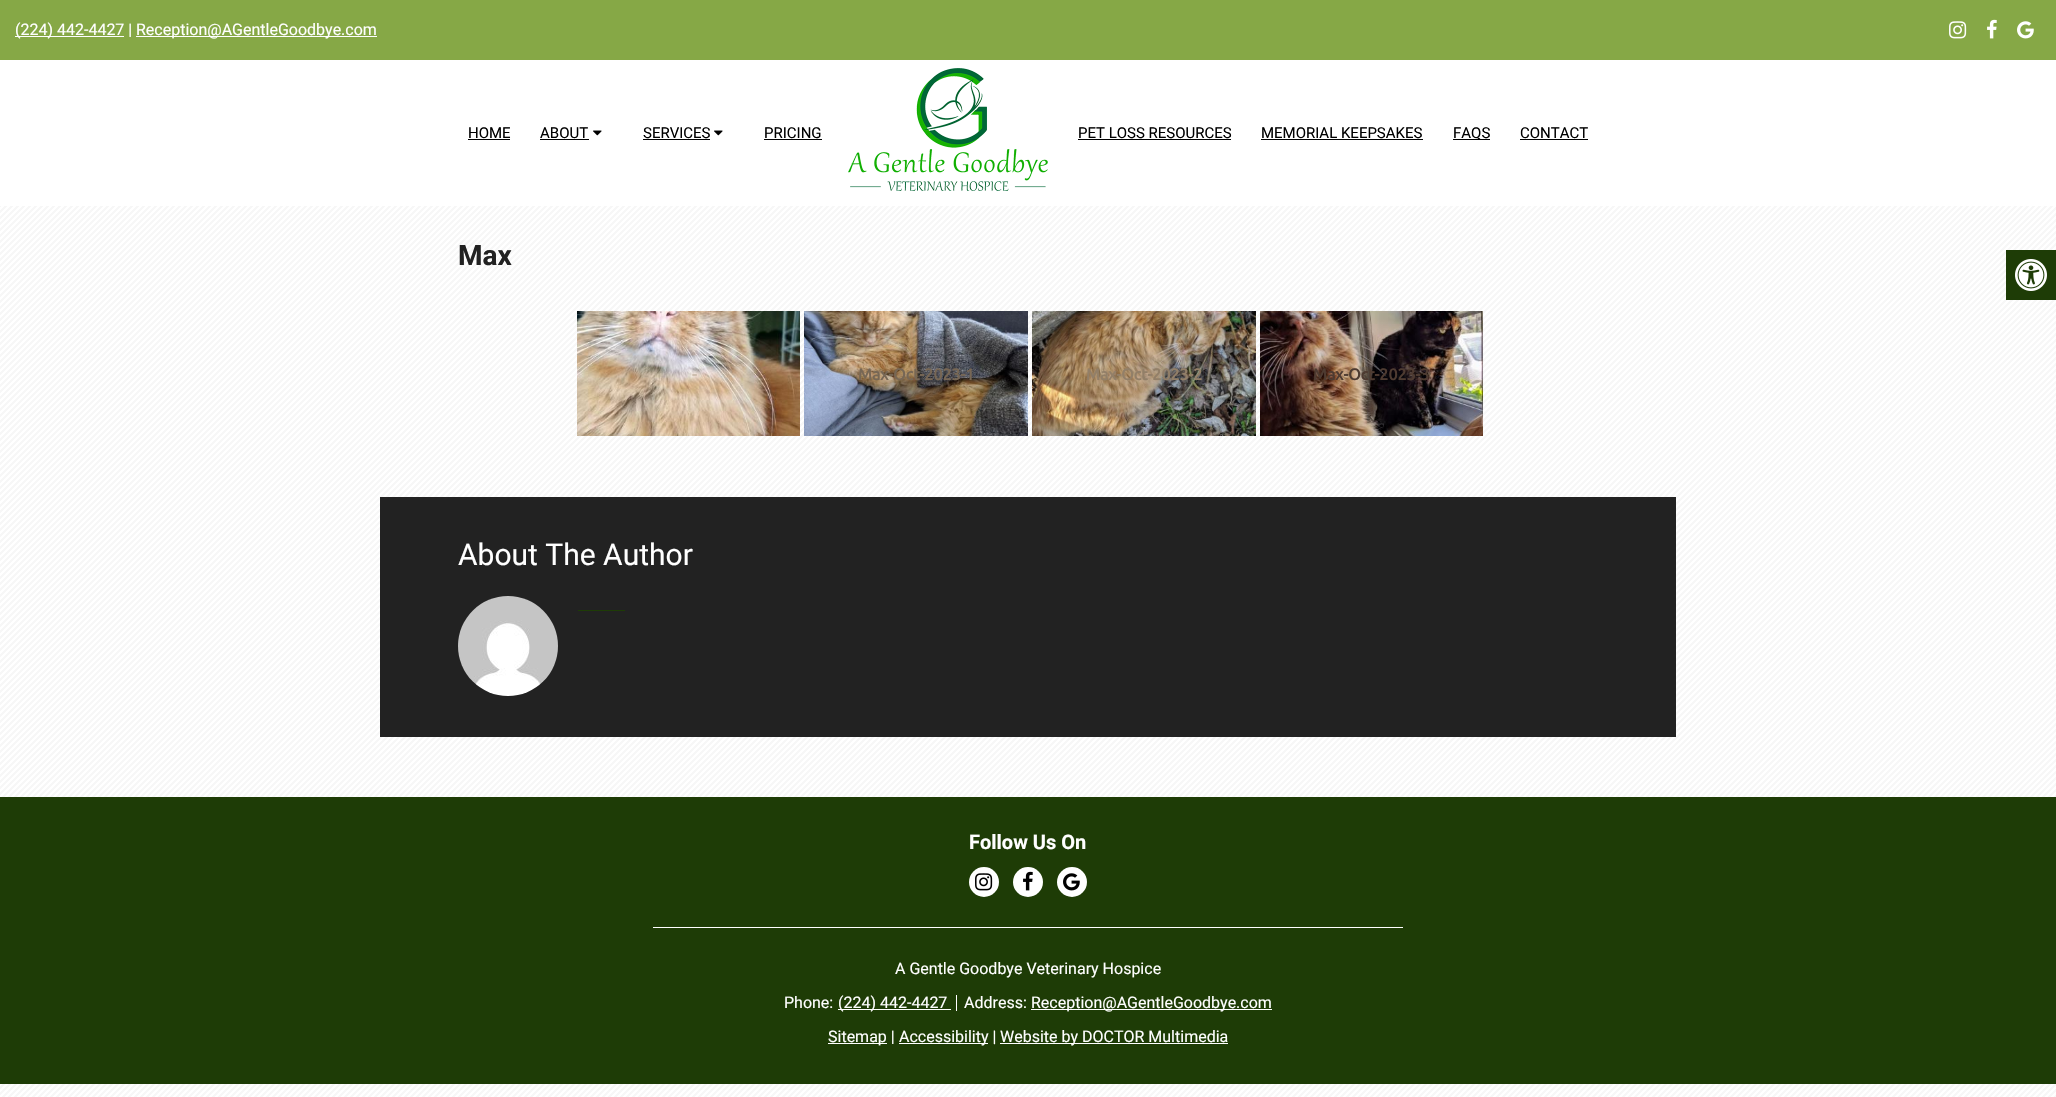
#include "include/core/SkBlurTypes.h"
#include "include/core/SkCanvas.h"
#include "include/core/SkData.h"
#include "include/core/SkFont.h"
#include "include/core/SkFontMgr.h"
#include "include/core/SkImage.h"
#include "include/core/SkMaskFilter.h"
#include "include/core/SkPaint.h"
#include "include/core/SkPathBuilder.h"
#include "include/core/SkTextBlob.h"
#include "include/effects/SkDashPathEffect.h"
#include "include/effects/SkGradientShader.h"
#include "include/utils/SkParsePath.h"

extern sk_sp<SkFontMgr> fontMgr;

static SkFont font(const char* family, int weight, float size, bool italic = false) {
    SkFontStyle style(weight, SkFontStyle::kNormal_Width,
        italic ? SkFontStyle::kItalic_Slant : SkFontStyle::kUpright_Slant);
    SkFont result(fontMgr->matchFamilyStyle(family, style), size);
    result.setSubpixel(true);
    return result;
}

static void drawLabel(SkCanvas* canvas, const char* s, float x, float y, const SkFont& font, SkColor color) {
    SkPaint ink(SkColor4f::FromColor(color));
    ink.setAntiAlias(true);
    canvas->drawString(s, x, y, font, ink);
}

static void fillRect(SkCanvas* canvas, float x, float y, float w, float h, SkColor color) {
    SkPaint ink(SkColor4f::FromColor(color));
    ink.setAntiAlias(true);
    canvas->drawRect(SkRect::MakeXYWH(x, y, w, h), ink);
}

static void drawPhoto(SkCanvas* canvas, const char* path, float x, float y, float w, float h) {
    auto image = SkImages::DeferredFromEncodedData(SkData::MakeFromFileName(path));
    canvas->drawImageRect(image, SkRect::MakeXYWH(x, y, w, h), SkSamplingOptions());
}

void draw(SkCanvas* canvas) {
    SkPaint paint;
    paint.setAntiAlias(true);
    canvas->clear(0xFFFFFFFF);
    drawPhoto(canvas, "assets/img1.png", 0, 206, 2056, 891);
    fillRect(canvas, 0, 0, 2056, 60, 0xFF86A846);
    fillRect(canvas, 15, 36, 109, 1, 0xFFFFFFFF);
    SkFont font1 = font("Roboto", 400, 16);
    drawLabel(canvas, "(224) 442-4427 |", 15, 35, font1, 0xFFFFFFFF);
    fillRect(canvas, 136, 36, 241, 1, 0xFFFFFFFF);
    drawLabel(canvas, "Reception@AGentleGoodbye.com", 136, 35, font1, 0xFFFFFFFF);
    drawPhoto(canvas, "assets/img2.png", 1949, 21, 18, 18);
    drawPhoto(canvas, "assets/img3.png", 1987, 19, 10, 20);
    drawPhoto(canvas, "assets/img4.png", 2017, 21, 17, 18);
    SkFont font2 = font("Roboto", 400, 15);
    drawLabel(canvas, "HOME", 468, 138, font2, 0xFF000000);
    fillRect(canvas, 468, 139, 42, 1, 0xFF000000);
    drawLabel(canvas, "ABOUT", 540, 138, font2, 0xFF000000);
    fillRect(canvas, 540, 139, 49, 1, 0xFF000000);
    drawPhoto(canvas, "assets/img5.png", 593, 130, 9, 6);
    drawLabel(canvas, "SERVICES", 643, 138, font2, 0xFF000000);
    fillRect(canvas, 643, 139, 67, 1, 0xFF000000);
    drawPhoto(canvas, "assets/img5.png", 714, 130, 9, 6);
    drawLabel(canvas, "PRICING", 764, 138, font2, 0xFF000000);
    fillRect(canvas, 764, 139, 58, 1, 0xFF000000);
    drawPhoto(canvas, "assets/img6.png", 848, 68, 200, 123);
    drawLabel(canvas, "PET LOSS RESOURCES", 1078, 138, font2, 0xFF000000);
    fillRect(canvas, 1078, 139, 153, 1, 0xFF000000);
    drawLabel(canvas, "MEMORIAL KEEPSAKES", 1261, 138, font2, 0xFF000000);
    fillRect(canvas, 1261, 139, 162, 1, 0xFF000000);
    fillRect(canvas, 1453, 139, 37, 1, 0xFF000000);
    drawLabel(canvas, "FAQS", 1453, 138, font2, 0xFF000000);
    drawLabel(canvas, "CONTACT", 1520, 138, font2, 0xFF000000);
    fillRect(canvas, 1520, 139, 68, 1, 0xFF000000);
    SkFont font3 = font("Roboto", 700, 28);
    drawLabel(canvas, "Max", 458, 265, font3, 0xFF222222);
    drawPhoto(canvas, "assets/img7.png", 577, 311, 223, 125);
    SkFont font4 = font("Ubuntu", 700, 16);
    drawLabel(canvas, "-", 692, 380, font4, 0xFFCCBCAC);
    drawPhoto(canvas, "assets/img8.png", 804, 311, 224, 125);
    drawLabel(canvas, "Max-Oct-2023-1", 858, 380, font4, 0xFF776755);
    drawPhoto(canvas, "assets/img9.png", 1032, 311, 224, 125);
    drawLabel(canvas, "Max-Oct-2023-2", 1086, 380, font4, 0xFF927F68);
    drawPhoto(canvas, "assets/img10.png", 1260, 311, 223, 125);
    drawLabel(canvas, "Max-Oct-2023-3", 1313, 380, font4, 0xFF4E3B31);
    fillRect(canvas, 380, 497, 1296, 240, 0xFF222222);
    SkFont font5 = font("Roboto", 400, 30);
    drawLabel(canvas, "About The Author", 458, 565, font5, 0xFFFFFFFF);
    drawPhoto(canvas, "assets/img11.png", 458, 596, 100, 100);
    fillRect(canvas, 578, 610, 47, 1, 0xFF1E3C06);
    fillRect(canvas, 0, 797, 2056, 287, 0xFF1E3C06);
    fillRect(canvas, 653, 927, 750, 1, 0xFFFFFFFF);
    SkFont font6 = font("Roboto", 700, 20);
    drawLabel(canvas, "Follow Us On", 969, 849, font6, 0xFFFFFFFF);
    paint.setColor(0xFFFFFFFF);
    canvas->drawCircle(984, 882, 15, paint);
    drawPhoto(canvas, "assets/img12.png", 975, 873, 18, 18);
    canvas->drawCircle(1028, 882, 15, paint);
    drawPhoto(canvas, "assets/img13.png", 1023, 871, 10, 20);
    canvas->drawCircle(1072, 882, 15, paint);
    drawPhoto(canvas, "assets/img14.png", 1063, 873, 17, 18);
    drawLabel(canvas, "A Gentle Goodbye Veterinary Hospice", 895, 974, font1, 0xFFFFFFFF);
    drawLabel(canvas, "Phone:", 784, 1008, font1, 0xFFFFFFFF);
    fillRect(canvas, 838, 1009, 113, 1, 0xFFFFFFFF);
    drawLabel(canvas, "(224) 442-4427", 838, 1008, font1, 0xFFFFFFFF);
    fillRect(canvas, 956, 995, 1, 16, 0xFFFFFFFF);
    drawLabel(canvas, "Address:", 964, 1008, font1, 0xFFFFFFFF);
    fillRect(canvas, 1031, 1009, 241, 1, 0xFFFFFFFF);
    drawLabel(canvas, "Reception@AGentleGoodbye.com", 1031, 1008, font1, 0xFFFFFFFF);
    fillRect(canvas, 828, 1043, 59, 1, 0xFFFFFFFF);
    drawLabel(canvas, "Sitemap |", 828, 1042, font1, 0xFFFFFFFF);
    fillRect(canvas, 899, 1043, 89, 1, 0xFFFFFFFF);
    drawLabel(canvas, "Accessibility |", 899, 1042, font1, 0xFFFFFFFF);
    fillRect(canvas, 1000, 1043, 228, 1, 0xFFFFFFFF);
    drawLabel(canvas, "Website by DOCTOR Multimedia", 1000, 1042, font1, 0xFFFFFFFF);
    fillRect(canvas, 2006, 250, 50, 50, 0xFF1E3C06);
    drawPhoto(canvas, "assets/img15.png", 2015, 259, 32, 32);
}
